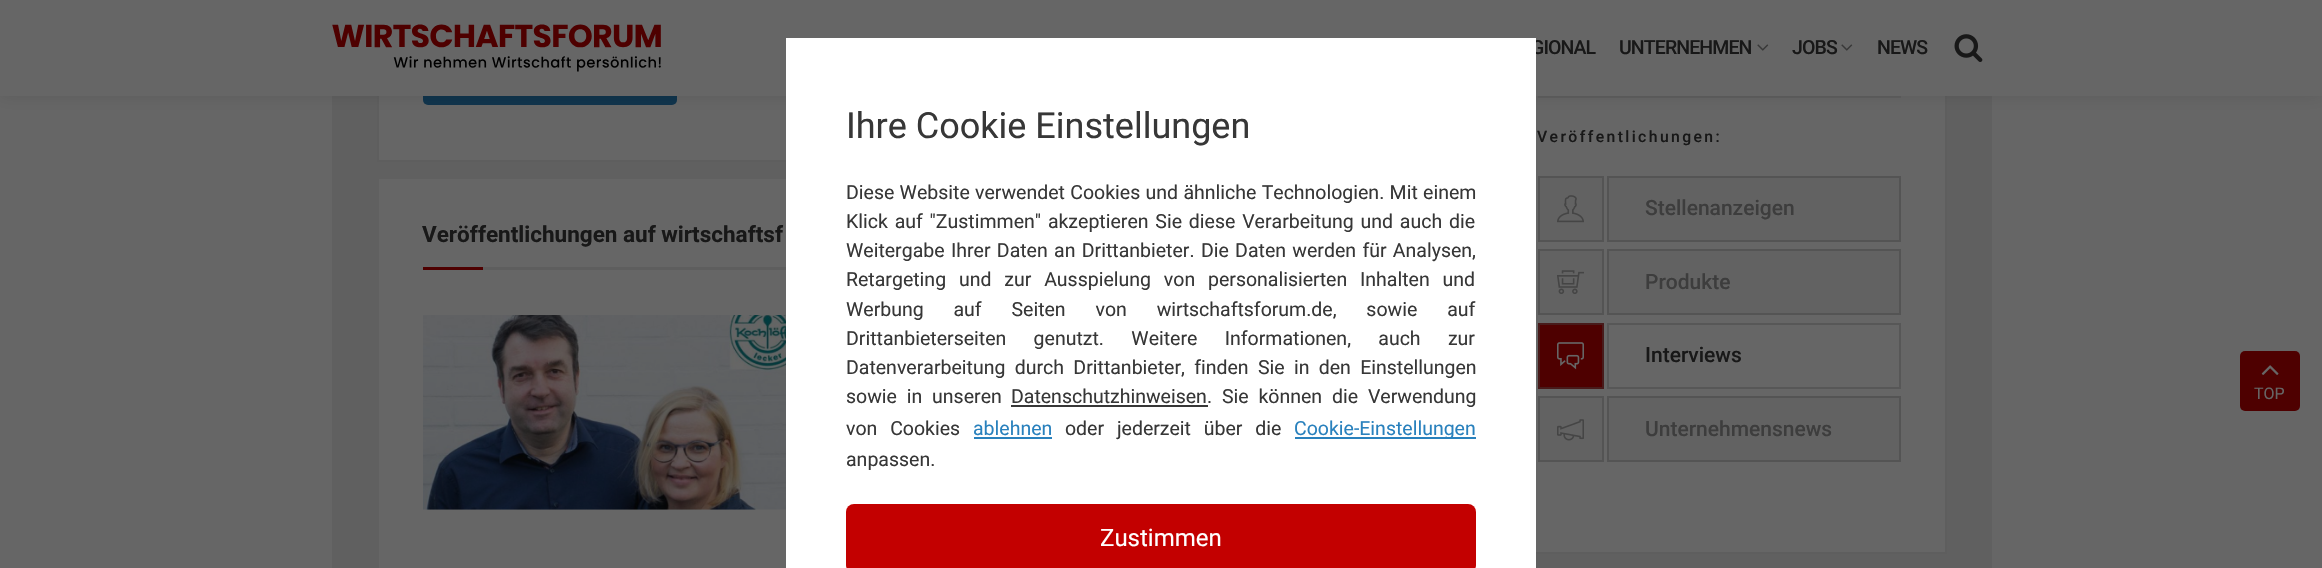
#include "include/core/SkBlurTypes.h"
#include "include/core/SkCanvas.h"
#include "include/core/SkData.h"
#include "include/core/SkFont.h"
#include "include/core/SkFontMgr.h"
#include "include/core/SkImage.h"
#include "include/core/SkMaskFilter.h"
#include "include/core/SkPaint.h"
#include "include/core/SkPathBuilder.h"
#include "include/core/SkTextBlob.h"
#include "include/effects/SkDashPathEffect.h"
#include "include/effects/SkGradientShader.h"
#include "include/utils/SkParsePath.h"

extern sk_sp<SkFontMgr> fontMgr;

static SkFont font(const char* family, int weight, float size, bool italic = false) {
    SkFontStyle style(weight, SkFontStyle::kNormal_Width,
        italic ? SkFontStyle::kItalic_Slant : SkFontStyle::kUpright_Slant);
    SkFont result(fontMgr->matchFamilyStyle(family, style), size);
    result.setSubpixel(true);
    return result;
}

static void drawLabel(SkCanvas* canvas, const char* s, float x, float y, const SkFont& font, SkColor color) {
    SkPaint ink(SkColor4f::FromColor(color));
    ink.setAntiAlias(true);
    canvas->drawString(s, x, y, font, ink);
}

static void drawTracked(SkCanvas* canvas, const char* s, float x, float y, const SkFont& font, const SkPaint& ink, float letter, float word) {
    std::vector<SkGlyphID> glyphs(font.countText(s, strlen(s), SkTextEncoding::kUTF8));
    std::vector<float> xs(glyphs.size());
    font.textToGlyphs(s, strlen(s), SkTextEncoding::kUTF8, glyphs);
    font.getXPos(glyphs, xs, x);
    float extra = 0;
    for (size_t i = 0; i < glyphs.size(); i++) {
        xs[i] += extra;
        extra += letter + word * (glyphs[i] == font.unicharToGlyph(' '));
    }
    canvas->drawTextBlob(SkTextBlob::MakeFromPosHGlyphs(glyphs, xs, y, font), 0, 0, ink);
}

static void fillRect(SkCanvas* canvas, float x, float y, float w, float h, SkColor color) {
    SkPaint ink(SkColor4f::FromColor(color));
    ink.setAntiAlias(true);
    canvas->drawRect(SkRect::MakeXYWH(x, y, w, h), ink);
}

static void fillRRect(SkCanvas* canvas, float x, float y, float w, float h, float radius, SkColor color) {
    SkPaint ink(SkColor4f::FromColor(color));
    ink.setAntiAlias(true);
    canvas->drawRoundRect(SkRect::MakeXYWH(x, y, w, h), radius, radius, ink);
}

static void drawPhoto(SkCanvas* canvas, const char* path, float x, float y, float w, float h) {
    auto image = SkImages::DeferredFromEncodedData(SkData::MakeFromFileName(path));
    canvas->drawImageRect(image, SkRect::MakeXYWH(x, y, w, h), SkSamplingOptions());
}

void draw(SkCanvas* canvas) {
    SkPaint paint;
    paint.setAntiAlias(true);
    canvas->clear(0xFF666666);
    fillRect(canvas, 332, 96, 1660, 472, 0xFF606060);
    fillRect(canvas, 379, 96, 407, 64, 0xFF666666);
    paint.setStroke(true);
    paint.setStrokeWidth(2);
    paint.setColor(0xFF5E5E5E);
    canvas->drawRect(SkRect::MakeXYWH(378, -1, 1067, 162), paint);
    fillRRect(canvas, 423, 39, 254, 66, 5, 0xFF10344C);
    fillRect(canvas, 1536, 96, 409, 456, 0xFF666666);
    canvas->drawRect(SkRect::MakeXYWH(1492, -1, 454, 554), paint);
    fillRect(canvas, 1538, 96, 363, 2, 0xFF5E5E5E);
    paint.setStroke(false);
    paint.setColor(0x1A000000);
    paint.setMaskFilter(SkMaskFilter::MakeBlur(kNormal_SkBlurStyle, 7.5f));
    canvas->drawRect(SkRect::MakeXYWH(0, 0, 2322, 96), paint);
    paint.setMaskFilter(nullptr);
    fillRect(canvas, 0, 0, 2322, 96, 0xFF666666);
    drawPhoto(canvas, "assets/img1.png", 332, 24, 329, 48);
    SkFont font1 = font("Roboto", 500, 19.5f);
    paint.setColor(0xFF181818);
    drawTracked(canvas, "GIONAL", 1531, 54, font1, paint, -0.9f, 0);
    drawTracked(canvas, "UNTERNEHMEN", 1619, 54, font1, paint, -0.9f, 0);
    drawPhoto(canvas, "assets/img2.png", 1757, 44, 12, 7);
    drawTracked(canvas, "JOBS", 1792, 54, font1, paint, -0.9f, 0);
    drawPhoto(canvas, "assets/img2.png", 1841, 44, 12, 7);
    drawTracked(canvas, "NEWS", 1877, 54, font1, paint, -0.9f, 0);
    drawPhoto(canvas, "assets/img3.png", 1954, 34, 29, 28);
    fillRect(canvas, 786, 38, 750, 530, 0xFFFFFFFF);
    SkFont font2 = font("Roboto", 400, 36);
    drawLabel(canvas, "Ihre Cookie Einstellungen", 846, 138, font2, 0xFF373737);
    SkFont font3 = font("Roboto", 400, 19.5f);
    paint.setColor(0xFF373737);
    drawTracked(canvas, "Diese Website verwendet Cookies und ähnliche Technologien. Mit einem", 846, 199, font3, paint, 0, 0.5f);
    drawTracked(canvas, "Klick auf \"Zustimmen\" akzeptieren Sie diese Verarbeitung und auch die", 846, 228, font3, paint, 0, 2);
    drawTracked(canvas, "Weitergabe Ihrer Daten an Drittanbieter. Die Daten werden für Analysen,", 846, 257, font3, paint, 0, 1.5f);
    drawTracked(canvas, "Retargeting und zur Ausspielung von personalisierten Inhalten und", 846, 286, font3, paint, 0, 8);
    drawTracked(canvas, "Werbung auf Seiten von wirtschaftsforum.de, sowie auf", 846, 316, font3, paint, 0, 25);
    drawTracked(canvas, "Drittanbieterseiten genutzt. Weitere Informationen, auch zur", 846, 345, font3, paint, 0, 22.5f);
    drawTracked(canvas, "Datenverarbeitung durch Drittanbieter, finden Sie in den Einstellungen", 846, 374, font3, paint, 0, 4.5f);
    drawTracked(canvas, "sowie in unseren", 846, 403, font3, paint, 0, 5);
    drawLabel(canvas, "Datenschutzhinweisen", 1011, 403, font3, 0xFF373737);
    fillRect(canvas, 1011, 405, 197, 2, 0xFF373737);
    drawTracked(canvas, ". Sie können die Verwendung", 1207, 403, font3, paint, 0, 5);
    drawTracked(canvas, "von Cookies", 846, 435, font3, paint, 0, 8);
    drawLabel(canvas, "ablehnen", 973, 435, font3, 0xFF2981BD);
    fillRect(canvas, 974, 437, 78, 2, 0xFF2981BD);
    drawTracked(canvas, "oder jederzeit über die", 1065, 435, font3, paint, 0, 8);
    fillRect(canvas, 1295, 437, 181, 2, 0xFF2981BD);
    drawLabel(canvas, "Cookie-Einstellungen", 1294, 435, font3, 0xFF2981BD);
    drawLabel(canvas, "anpassen.", 846, 466, font3, 0xFF373737);
    fillRRect(canvas, 846, 504, 630, 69, 8, 0xFFC30000);
    SkFont font4 = font("Roboto", 400, 24);
    drawLabel(canvas, "Zustimmen", 1100, 546, font4, 0xFFFFFFFF);
    fillRect(canvas, 379, 179, 407, 389, 0xFF666666);
    SkFont font5 = font("Roboto", 700, 22.5f);
    drawLabel(canvas, "Veröffentlichungen auf wirtschaftsf", 422, 242, font5, 0xFF181818);
    fillRect(canvas, 423, 267, 60, 3, 0xFF4E0000);
    fillRect(canvas, 483, 267, 303, 3, 0xFF5E5E5E);
    drawPhoto(canvas, "assets/img4.png", 423, 315, 363, 195);
    SkFont font6 = font("Roboto", 500, 15.75f);
    paint.setColor(0xFF181818);
    drawTracked(canvas, "Veröffentlichungen:", 1537, 142, font6, paint, 2.4f, 0);
    paint.setColor(0xFF626262);
    canvas->drawRect(SkRect::MakeXYWH(1539, 177, 64, 64), paint);
    paint.setStroke(true);
    paint.setColor(0xFF545454);
    canvas->drawRect(SkRect::MakeXYWH(1539, 177, 64, 64), paint);
    drawPhoto(canvas, "assets/img5.png", 1557, 195, 27, 28);
    paint.setStroke(false);
    paint.setColor(0xFF626262);
    canvas->drawRect(SkRect::MakeXYWH(1608, 177, 292, 64), paint);
    paint.setStroke(true);
    paint.setColor(0xFF545454);
    canvas->drawRect(SkRect::MakeXYWH(1608, 177, 292, 64), paint);
    SkFont font7 = font("Roboto", 500, 21);
    drawLabel(canvas, "Stellenanzeigen", 1645, 215, font7, 0xFF3D3D3D);
    paint.setStroke(false);
    paint.setColor(0xFF626262);
    canvas->drawRect(SkRect::MakeXYWH(1539, 250, 64, 64), paint);
    paint.setStroke(true);
    paint.setColor(0xFF545454);
    canvas->drawRect(SkRect::MakeXYWH(1539, 250, 64, 64), paint);
    drawPhoto(canvas, "assets/img6.png", 1557, 270, 27, 24);
    paint.setStroke(false);
    paint.setColor(0xFF626262);
    canvas->drawRect(SkRect::MakeXYWH(1608, 250, 292, 64), paint);
    paint.setStroke(true);
    paint.setColor(0xFF545454);
    canvas->drawRect(SkRect::MakeXYWH(1608, 250, 292, 64), paint);
    drawLabel(canvas, "Produkte", 1645, 289, font7, 0xFF3D3D3D);
    paint.setStroke(false);
    paint.setColor(0xFF4E0000);
    canvas->drawRect(SkRect::MakeXYWH(1539, 324, 64, 64), paint);
    paint.setStroke(true);
    paint.setColor(0xFF481A1A);
    canvas->drawRect(SkRect::MakeXYWH(1539, 324, 64, 64), paint);
    drawPhoto(canvas, "assets/img7.png", 1557, 342, 27, 28);
    paint.setColor(0xFF575757);
    canvas->drawRect(SkRect::MakeXYWH(1608, 324, 292, 64), paint);
    drawLabel(canvas, "Interviews", 1645, 362, font7, 0xFF181818);
    paint.setStroke(false);
    paint.setColor(0xFF626262);
    canvas->drawRect(SkRect::MakeXYWH(1539, 397, 64, 64), paint);
    paint.setStroke(true);
    paint.setColor(0xFF545454);
    canvas->drawRect(SkRect::MakeXYWH(1539, 397, 64, 64), paint);
    drawPhoto(canvas, "assets/img8.png", 1557, 419, 27, 22);
    paint.setStroke(false);
    paint.setColor(0xFF626262);
    canvas->drawRect(SkRect::MakeXYWH(1608, 397, 292, 64), paint);
    paint.setStroke(true);
    paint.setColor(0xFF545454);
    canvas->drawRect(SkRect::MakeXYWH(1608, 397, 292, 64), paint);
    drawLabel(canvas, "Unternehmensnews", 1645, 436, font7, 0xFF3D3D3D);
    fillRRect(canvas, 2240, 351, 60, 60, 5, 0xFF4E0000);
    drawPhoto(canvas, "assets/img9.png", 2261, 365, 18, 10);
    SkFont font8 = font("Roboto", 400, 16);
    drawLabel(canvas, "TOP", 2254, 399, font8, 0xFF666666);
}
